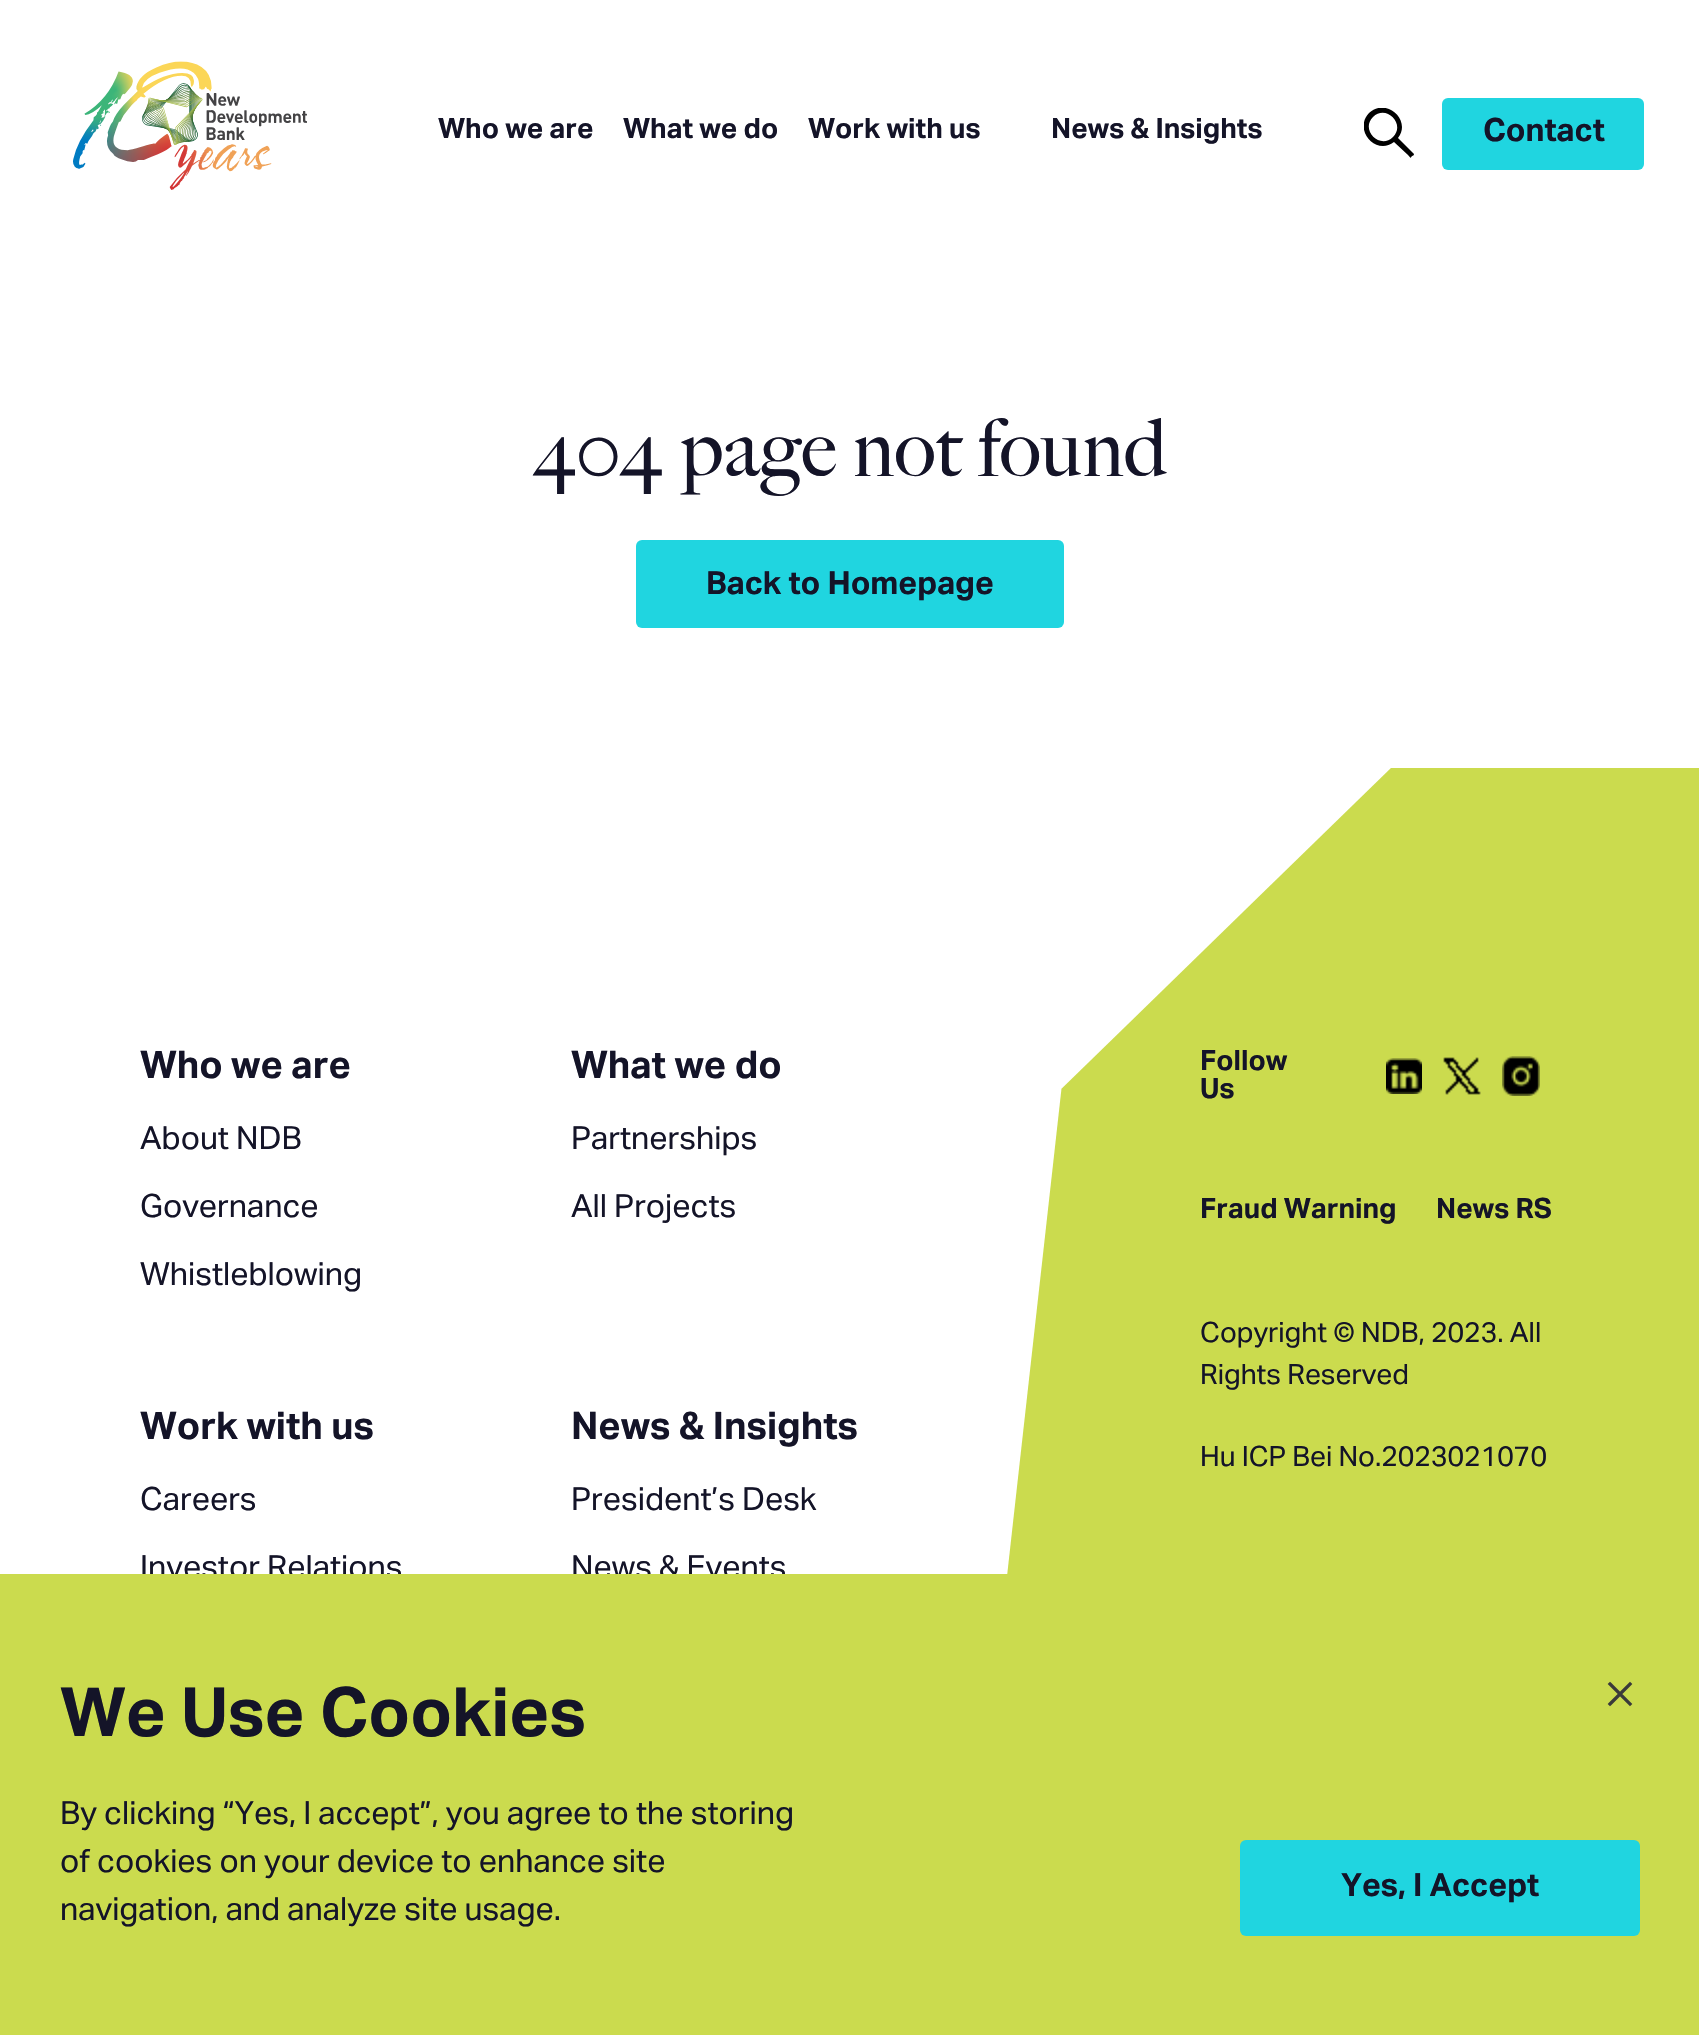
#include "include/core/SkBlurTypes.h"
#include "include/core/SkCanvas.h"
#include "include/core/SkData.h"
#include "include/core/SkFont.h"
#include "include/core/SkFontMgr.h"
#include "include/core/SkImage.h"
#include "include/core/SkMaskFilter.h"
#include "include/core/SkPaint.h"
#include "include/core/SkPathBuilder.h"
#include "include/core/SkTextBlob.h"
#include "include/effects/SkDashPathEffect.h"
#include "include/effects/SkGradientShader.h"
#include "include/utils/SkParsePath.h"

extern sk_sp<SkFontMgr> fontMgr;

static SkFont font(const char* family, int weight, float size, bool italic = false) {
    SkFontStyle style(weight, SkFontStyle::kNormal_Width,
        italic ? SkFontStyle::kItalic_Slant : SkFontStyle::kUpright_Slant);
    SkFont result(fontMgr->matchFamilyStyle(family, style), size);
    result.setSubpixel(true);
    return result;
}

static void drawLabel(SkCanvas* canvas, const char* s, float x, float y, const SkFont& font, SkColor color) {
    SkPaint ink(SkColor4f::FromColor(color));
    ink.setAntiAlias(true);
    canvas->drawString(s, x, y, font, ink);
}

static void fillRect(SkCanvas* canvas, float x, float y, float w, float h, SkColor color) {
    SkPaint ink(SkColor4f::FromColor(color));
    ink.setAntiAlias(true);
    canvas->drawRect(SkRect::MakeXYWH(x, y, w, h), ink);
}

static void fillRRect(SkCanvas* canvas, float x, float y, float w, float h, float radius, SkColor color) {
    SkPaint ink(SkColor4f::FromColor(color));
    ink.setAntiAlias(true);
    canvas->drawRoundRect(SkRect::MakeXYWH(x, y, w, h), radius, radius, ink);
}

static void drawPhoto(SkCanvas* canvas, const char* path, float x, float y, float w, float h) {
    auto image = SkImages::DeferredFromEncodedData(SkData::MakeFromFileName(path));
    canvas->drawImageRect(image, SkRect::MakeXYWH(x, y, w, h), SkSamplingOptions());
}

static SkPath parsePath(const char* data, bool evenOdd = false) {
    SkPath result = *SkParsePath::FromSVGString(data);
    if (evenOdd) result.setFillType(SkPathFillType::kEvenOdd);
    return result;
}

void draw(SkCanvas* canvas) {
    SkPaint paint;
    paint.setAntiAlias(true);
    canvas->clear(0xFFFFFFFF);
    SkFont font1 = font("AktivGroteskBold", 700, 28);
    drawLabel(canvas, "Who we are", 438, 138, font1, 0xFF141428);
    drawLabel(canvas, "What we do", 623, 138, font1, 0xFF141428);
    drawLabel(canvas, "Work with us", 808, 138, font1, 0xFF141428);
    drawLabel(canvas, "News & Insights", 1051, 138, font1, 0xFF141428);
    drawPhoto(canvas, "assets/img1.png", 73, 61, 234, 129);
    canvas->save();
    canvas->clipRect(SkRect::MakeXYWH(1364, 108, 50, 50));
    paint.setColor(0xFF000000);
    canvas->drawPath(parsePath("M1414 154L1398 138C1412 120 1386 97 1369 113C1353 130 1376 156 1394 142L1408 155C1411 158 1410 159 1412 156C1413 156 1414 155 1414 154ZM1393 137C1380 150 1360 130 1373 117C1386 104 1406 124 1393 137Z"), paint);
    canvas->restore();
    fillRRect(canvas, 1442, 98, 202, 72, 6, 0xFF20D5E0);
    SkFont font2 = font("AktivGroteskBold", 700, 32);
    drawLabel(canvas, "Contact", 1483, 141, font2, 0xFF141428);
    SkFont font3 = font("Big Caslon", 500, 80);
    drawLabel(canvas, "404 page not found", 533, 476, font3, 0xFF141428);
    fillRRect(canvas, 636, 540, 428, 88, 6, 0xFF20D5E0);
    drawLabel(canvas, "Back to Homepage", 706, 594, font2, 0xFF141428);
    SkFont font4 = font("AktivGroteskBold", 700, 38);
    drawLabel(canvas, "Who we are", 140, 1078, font4, 0xFF141428);
    SkFont font5 = font("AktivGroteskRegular", 400, 32);
    drawLabel(canvas, "About NDB", 140, 1149, font5, 0xFF141428);
    drawLabel(canvas, "Governance", 140, 1217, font5, 0xFF141428);
    drawLabel(canvas, "Whistleblowing", 140, 1285, font5, 0xFF141428);
    drawLabel(canvas, "What we do", 571, 1078, font4, 0xFF141428);
    drawLabel(canvas, "Partnerships", 571, 1149, font5, 0xFF141428);
    drawLabel(canvas, "All Projects", 571, 1217, font5, 0xFF141428);
    drawLabel(canvas, "Work with us", 140, 1439, font4, 0xFF141428);
    drawLabel(canvas, "Careers", 140, 1510, font5, 0xFF141428);
    drawLabel(canvas, "Investor Relations", 140, 1578, font5, 0xFF141428);
    drawLabel(canvas, "News & Insights", 571, 1439, font4, 0xFF141428);
    drawLabel(canvas, "President’s Desk", 571, 1510, font5, 0xFF141428);
    drawLabel(canvas, "News & Events", 571, 1578, font5, 0xFF141428);
    drawPhoto(canvas, "assets/img2.png", 1007, 768, 553, 806);
    drawLabel(canvas, "Follow", 1200, 1070, font1, 0xFF141428);
    drawLabel(canvas, "Us", 1200, 1098, font1, 0xFF141428);
    drawPhoto(canvas, "assets/img3.png", 1386, 1058, 36, 36);
    drawPhoto(canvas, "assets/img4.png", 1443, 1057, 38, 38);
    drawPhoto(canvas, "assets/img5.png", 1502, 1056, 38, 40);
    drawLabel(canvas, "Fraud Warning", 1200, 1218, font1, 0xFF141428);
    drawLabel(canvas, "News RS", 1436, 1218, font1, 0xFF141428);
    SkFont font6 = font("AktivGroteskRegular", 400, 28);
    drawLabel(canvas, "Copyright © NDB, 2023. All", 1200, 1342, font6, 0xFF141428);
    drawLabel(canvas, "Rights Reserved", 1200, 1384, font6, 0xFF141428);
    drawLabel(canvas, "Hu ICP Bei No.2023021070", 1200, 1466, font6, 0xFF141428);
    fillRect(canvas, 1560, 768, 139, 806, 0xFFCBDB4E);
    fillRect(canvas, 0, 1574, 1699, 461, 0xFFCBDB4E);
    SkFont font7 = font("AktivGroteskBold", 700, 68);
    drawLabel(canvas, "We Use Cookies", 60, 1736, font7, 0xFF141428);
    drawLabel(canvas, "By clicking “Yes, I accept”, you agree to the storing", 60, 1824, font5, 0xFF141428);
    drawLabel(canvas, "of cookies on your device to enhance site", 60, 1872, font5, 0xFF141428);
    drawLabel(canvas, "navigation, and analyze site usage.", 60, 1920, font5, 0xFF141428);
    paint.setStroke(true);
    paint.setStrokeWidth(3.3f);
    paint.setStrokeCap(SkPaint::kSquare_Cap);
    paint.setColor(0xFF3A3A3A);
    canvas->drawPath(parsePath("M1630 1684L1610 1704M1610 1684L1630 1704"), paint);
    fillRRect(canvas, 1240, 1840, 400, 96, 6, 0xFF20D5E0);
    drawLabel(canvas, "Yes, I Accept", 1341, 1896, font2, 0xFF141428);
}
